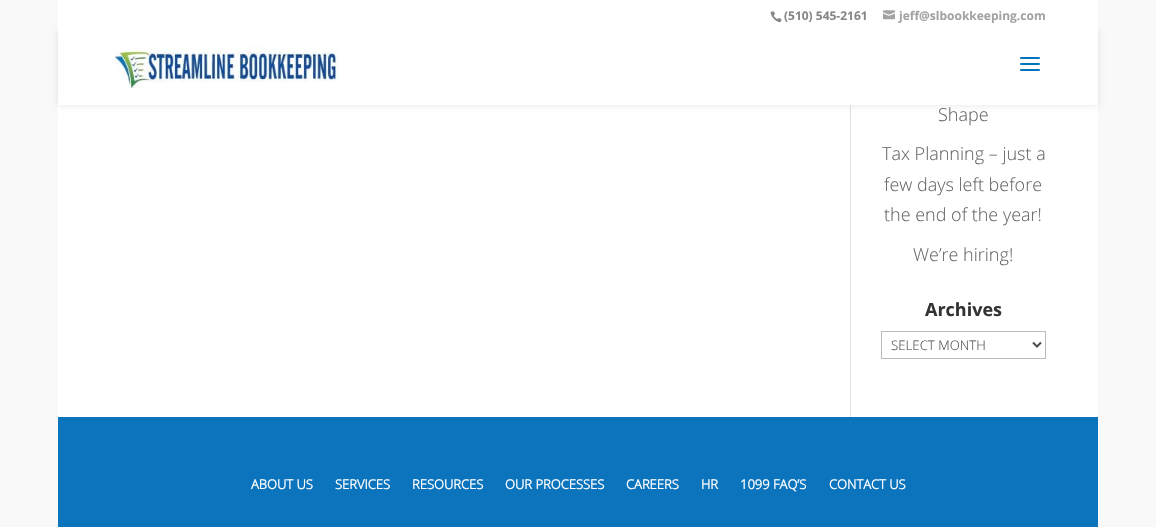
#include "include/core/SkBlurTypes.h"
#include "include/core/SkCanvas.h"
#include "include/core/SkData.h"
#include "include/core/SkFont.h"
#include "include/core/SkFontMgr.h"
#include "include/core/SkImage.h"
#include "include/core/SkMaskFilter.h"
#include "include/core/SkPaint.h"
#include "include/core/SkPathBuilder.h"
#include "include/core/SkTextBlob.h"
#include "include/effects/SkDashPathEffect.h"
#include "include/effects/SkGradientShader.h"
#include "include/utils/SkParsePath.h"

extern sk_sp<SkFontMgr> fontMgr;

static SkFont font(const char* family, int weight, float size, bool italic = false) {
    SkFontStyle style(weight, SkFontStyle::kNormal_Width,
        italic ? SkFontStyle::kItalic_Slant : SkFontStyle::kUpright_Slant);
    SkFont result(fontMgr->matchFamilyStyle(family, style), size);
    result.setSubpixel(true);
    return result;
}

static void drawLabel(SkCanvas* canvas, const char* s, float x, float y, const SkFont& font, SkColor color) {
    SkPaint ink(SkColor4f::FromColor(color));
    ink.setAntiAlias(true);
    canvas->drawString(s, x, y, font, ink);
}

static void fillRect(SkCanvas* canvas, float x, float y, float w, float h, SkColor color) {
    SkPaint ink(SkColor4f::FromColor(color));
    ink.setAntiAlias(true);
    canvas->drawRect(SkRect::MakeXYWH(x, y, w, h), ink);
}

static void drawPhoto(SkCanvas* canvas, const char* path, float x, float y, float w, float h) {
    auto image = SkImages::DeferredFromEncodedData(SkData::MakeFromFileName(path));
    canvas->drawImageRect(image, SkRect::MakeXYWH(x, y, w, h), SkSamplingOptions());
}

static SkPath parsePath(const char* data, bool evenOdd = false) {
    SkPath result = *SkParsePath::FromSVGString(data);
    if (evenOdd) result.setFillType(SkPathFillType::kEvenOdd);
    return result;
}

void draw(SkCanvas* canvas) {
    SkPaint paint;
    paint.setAntiAlias(true);
    canvas->clear(0xFFF9F9F9);
    fillRect(canvas, 58, 105, 1040, 312, 0xFFFFFFFF);
    fillRect(canvas, 850, 105, 1, 312, 0xFFE2E2E2);
    paint.setColor(0x1A000000);
    paint.setMaskFilter(SkMaskFilter::MakeBlur(kNormal_SkBlurStyle, 3.5f));
    canvas->drawRect(SkRect::MakeXYWH(58, 31, 1040, 74), paint);
    paint.setMaskFilter(nullptr);
    fillRect(canvas, 58, 0, 1040, 105, 0xFFFFFFFF);
    drawPhoto(canvas, "assets/img1.png", 115, 46, 225, 43);
    drawPhoto(canvas, "assets/img2.png", 1020, 57, 20, 14);
    drawPhoto(canvas, "assets/img3.png", 770, 11, 12, 12);
    SkFont font1 = font("Open Sans", 700, 12);
    drawLabel(canvas, "(510) 545-2161", 784, 20, font1, 0xFF878787);
    drawPhoto(canvas, "assets/img4.png", 883, 10, 12, 10);
    drawLabel(canvas, "jeff@slbookkeeping.com", 899, 20, font1, 0xFFA3A3A3);
    SkFont font2 = font("Open Sans", 300, 18);
    drawLabel(canvas, "Shape", 938, 121, font2, 0xFF666666);
    drawLabel(canvas, "Tax Planning – just a", 882, 160, font2, 0xFF666666);
    drawLabel(canvas, "few days left before", 884, 191, font2, 0xFF666666);
    drawLabel(canvas, "the end of the year!", 884, 221, font2, 0xFF666666);
    drawLabel(canvas, "We’re hiring!", 913, 261, font2, 0xFF666666);
    SkFont font3 = font("Open Sans", 700, 18);
    drawLabel(canvas, "Archives", 925, 316, font3, 0xFF333333);
    paint.setStroke(true);
    paint.setStrokeWidth(1);
    paint.setColor(0xFFBBBBBB);
    canvas->drawRect(SkRect::MakeXYWH(881.5f, 331.5f, 164, 27), paint);
    paint.setStrokeWidth(2);
    paint.setColor(0xFF4E4E4E);
    canvas->drawPath(parsePath("M1033 342.5L1037 346.5L1041 342.5"), paint);
    SkFont font4 = font("Open Sans", 300, 13.25f);
    drawLabel(canvas, "SELECT MONTH", 891, 350, font4, 0xFF4E4E4E);
    fillRect(canvas, 58, 417, 1040, 110, 0xFF0B74BC);
    SkFont font5 = font("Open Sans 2", 700, 13);
    drawLabel(canvas, "ABOUT US", 251, 489, font5, 0xFFFFFFFF);
    drawLabel(canvas, "SERVICES", 335, 489, font5, 0xFFFFFFFF);
    drawLabel(canvas, "RESOURCES", 412, 489, font5, 0xFFFFFFFF);
    drawLabel(canvas, "OUR PROCESSES", 505, 489, font5, 0xFFFFFFFF);
    drawLabel(canvas, "CAREERS", 626, 489, font5, 0xFFFFFFFF);
    drawLabel(canvas, "HR", 701, 489, font5, 0xFFFFFFFF);
    drawLabel(canvas, "1099 FAQ’S", 740, 489, font5, 0xFFFFFFFF);
    drawLabel(canvas, "CONTACT US", 829, 489, font5, 0xFFFFFFFF);
}
